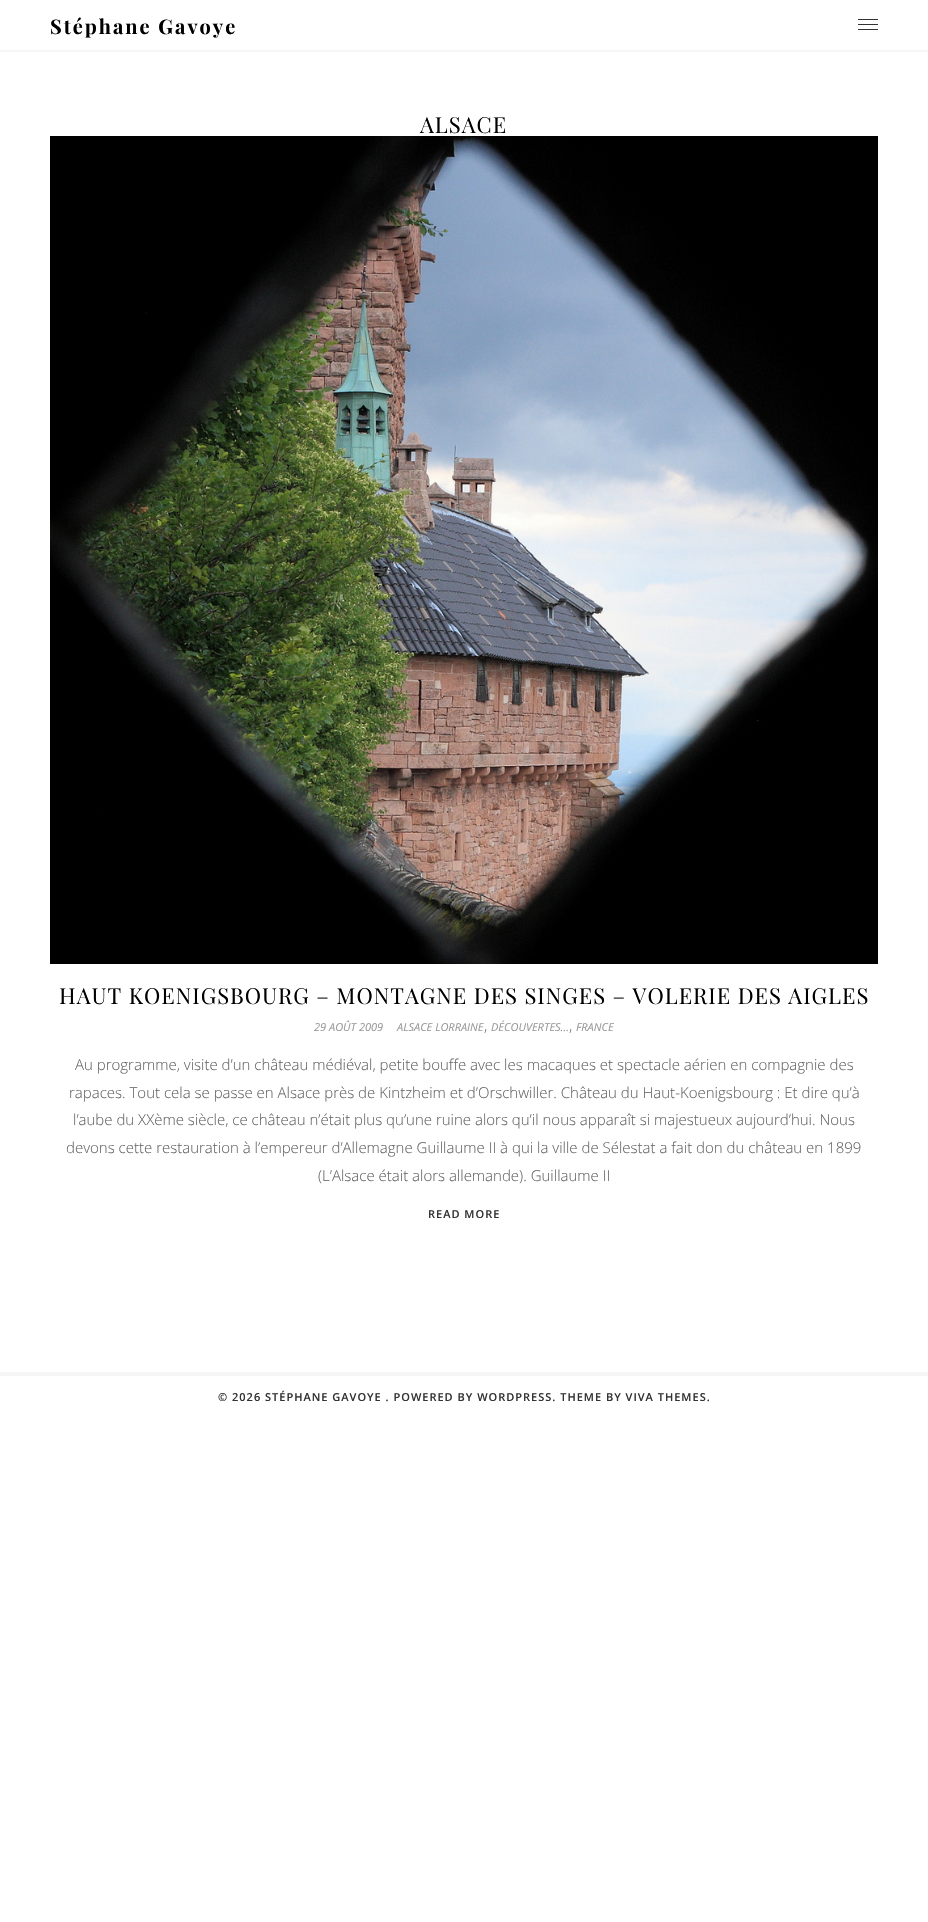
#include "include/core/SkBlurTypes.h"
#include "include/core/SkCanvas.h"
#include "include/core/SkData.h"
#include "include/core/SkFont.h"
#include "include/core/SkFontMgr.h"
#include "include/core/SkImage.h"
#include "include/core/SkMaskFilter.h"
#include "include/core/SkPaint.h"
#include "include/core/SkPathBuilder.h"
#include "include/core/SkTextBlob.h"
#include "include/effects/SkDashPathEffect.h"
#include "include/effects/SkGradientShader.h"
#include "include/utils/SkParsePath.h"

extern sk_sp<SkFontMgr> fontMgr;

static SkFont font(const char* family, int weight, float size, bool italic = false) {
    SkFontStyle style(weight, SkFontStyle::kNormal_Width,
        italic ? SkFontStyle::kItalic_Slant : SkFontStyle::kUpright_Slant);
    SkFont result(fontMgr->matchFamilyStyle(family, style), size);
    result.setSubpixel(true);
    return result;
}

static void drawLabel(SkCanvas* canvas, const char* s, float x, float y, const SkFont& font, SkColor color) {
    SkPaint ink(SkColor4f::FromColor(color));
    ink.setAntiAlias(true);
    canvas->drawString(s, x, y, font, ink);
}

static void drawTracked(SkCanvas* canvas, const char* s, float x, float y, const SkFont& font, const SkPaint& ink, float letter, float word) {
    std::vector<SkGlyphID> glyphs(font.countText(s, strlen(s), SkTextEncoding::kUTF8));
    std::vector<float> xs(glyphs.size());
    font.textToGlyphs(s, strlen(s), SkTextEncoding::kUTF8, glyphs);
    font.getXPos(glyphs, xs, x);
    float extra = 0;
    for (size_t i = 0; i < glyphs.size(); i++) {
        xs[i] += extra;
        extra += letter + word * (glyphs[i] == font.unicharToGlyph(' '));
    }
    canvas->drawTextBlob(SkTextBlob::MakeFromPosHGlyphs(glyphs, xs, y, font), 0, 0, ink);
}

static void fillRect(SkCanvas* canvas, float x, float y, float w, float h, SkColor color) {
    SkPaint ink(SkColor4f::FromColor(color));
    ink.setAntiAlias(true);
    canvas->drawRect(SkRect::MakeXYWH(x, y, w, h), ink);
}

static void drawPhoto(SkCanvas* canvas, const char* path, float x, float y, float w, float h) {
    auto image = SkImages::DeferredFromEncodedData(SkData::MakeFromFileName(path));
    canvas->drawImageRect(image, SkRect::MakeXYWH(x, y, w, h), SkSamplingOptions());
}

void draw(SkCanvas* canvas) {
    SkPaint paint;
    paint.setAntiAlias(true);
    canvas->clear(0xFFFFFFFF);
    fillRect(canvas, 0, 50, 928, 2, 0xFFF6F6F6);
    SkFont font1 = font("Playfair Display", 700, 20);
    paint.setColor(0xFF000000);
    drawTracked(canvas, "Stéphane Gavoye", 50, 34, font1, paint, 2, 0);
    fillRect(canvas, 858, 19, 20, 1, 0xFF333333);
    fillRect(canvas, 858, 24, 20, 1, 0xFF333333);
    fillRect(canvas, 858, 29, 20, 1, 0xFF333333);
    SkFont font2 = font("Playfair Display", 400, 22);
    drawTracked(canvas, "ALSACE", 420, 133, font2, paint, 1, 0);
    drawPhoto(canvas, "assets/img1.png", 50, 136, 828, 828);
    drawTracked(canvas, "HAUT KOENIGSBOURG – MONTAGNE DES SINGES – VOLERIE DES AIGLES", 59, 1004, font2, paint, 1, 0);
    SkFont font3 = font("Open Sans", 400, 11, true);
    drawLabel(canvas, "29 AOÛT 2009", 314, 1031, font3, 0xFF999999);
    drawLabel(canvas, "ALSACE LORRAINE", 397, 1031, font3, 0xFF999999);
    SkFont font4 = font("Open Sans", 300, 15);
    drawLabel(canvas, ",", 484, 1031, font4, 0xFF666666);
    drawLabel(canvas, "DÉCOUVERTES...", 491, 1031, font3, 0xFF999999);
    drawLabel(canvas, ",", 569, 1031, font4, 0xFF666666);
    drawLabel(canvas, "FRANCE", 576, 1031, font3, 0xFF999999);
    drawLabel(canvas, "Au programme, visite d’un château médiéval, petite bouffe avec les macaques et spectacle aérien en compagnie des", 75, 1070, font4, 0xFF666666);
    drawLabel(canvas, "rapaces. Tout cela se passe en Alsace près de Kintzheim et d’Orschwiller. Château du Haut-Koenigsbourg : Et dire qu’à", 69, 1098, font4, 0xFF666666);
    drawLabel(canvas, "l’aube du XXème siècle, ce château n’était plus qu’une ruine alors qu’il nous apparaît si majestueux aujourd’hui. Nous", 73, 1125, font4, 0xFF666666);
    drawLabel(canvas, "devons cette restauration à l’empereur d’Allemagne Guillaume II à qui la ville de Sélestat a fait don du château en 1899", 66, 1153, font4, 0xFF666666);
    drawLabel(canvas, "(L’Alsace était alors allemande). Guillaume II", 318, 1181, font4, 0xFF666666);
    SkFont font5 = font("Open Sans", 600, 11);
    paint.setColor(0xFF333333);
    drawTracked(canvas, "READ MORE", 428, 1218, font5, paint, 1, 0);
    fillRect(canvas, 0, 1372, 928, 4, 0xFFF6F6F6);
    drawTracked(canvas, "© 2026 STÉPHANE GAVOYE . POWERED BY WORDPRESS. THEME BY VIVA THEMES.", 218, 1401, font5, paint, 1, 0);
}
